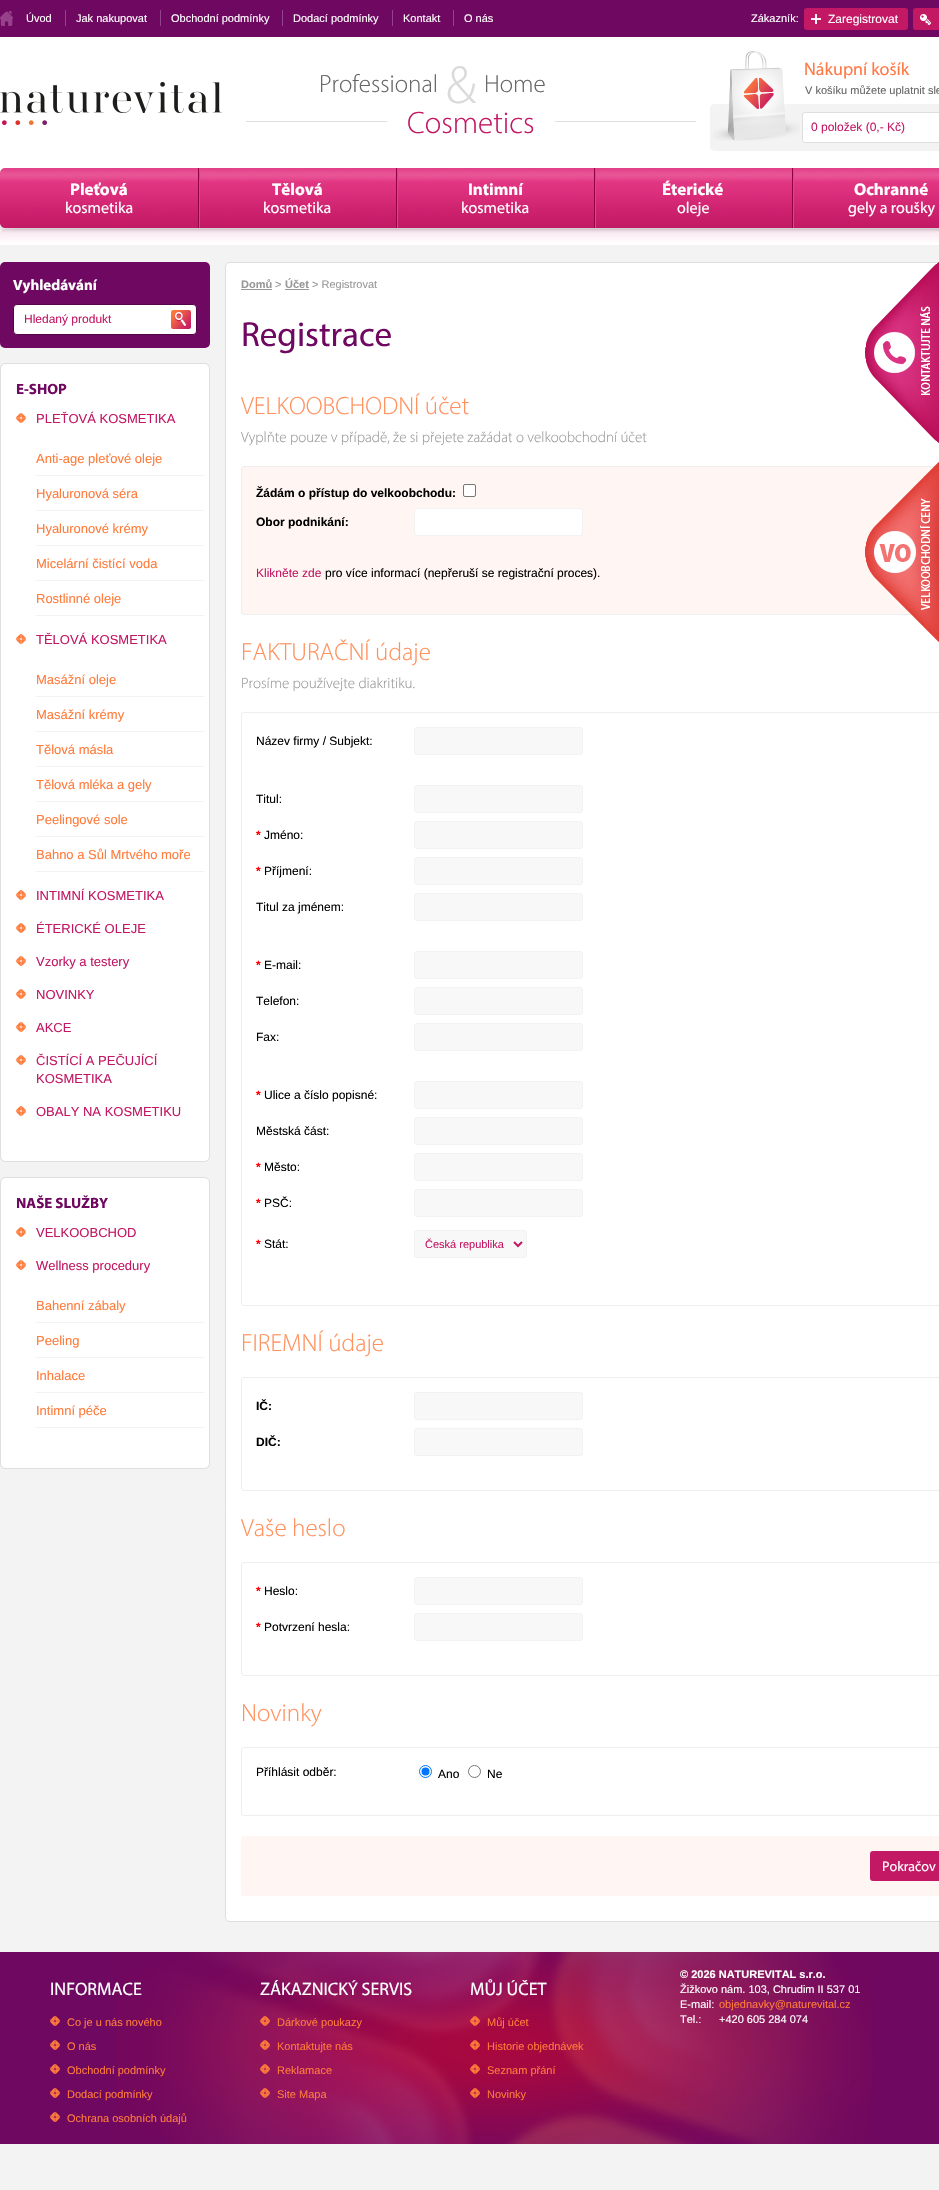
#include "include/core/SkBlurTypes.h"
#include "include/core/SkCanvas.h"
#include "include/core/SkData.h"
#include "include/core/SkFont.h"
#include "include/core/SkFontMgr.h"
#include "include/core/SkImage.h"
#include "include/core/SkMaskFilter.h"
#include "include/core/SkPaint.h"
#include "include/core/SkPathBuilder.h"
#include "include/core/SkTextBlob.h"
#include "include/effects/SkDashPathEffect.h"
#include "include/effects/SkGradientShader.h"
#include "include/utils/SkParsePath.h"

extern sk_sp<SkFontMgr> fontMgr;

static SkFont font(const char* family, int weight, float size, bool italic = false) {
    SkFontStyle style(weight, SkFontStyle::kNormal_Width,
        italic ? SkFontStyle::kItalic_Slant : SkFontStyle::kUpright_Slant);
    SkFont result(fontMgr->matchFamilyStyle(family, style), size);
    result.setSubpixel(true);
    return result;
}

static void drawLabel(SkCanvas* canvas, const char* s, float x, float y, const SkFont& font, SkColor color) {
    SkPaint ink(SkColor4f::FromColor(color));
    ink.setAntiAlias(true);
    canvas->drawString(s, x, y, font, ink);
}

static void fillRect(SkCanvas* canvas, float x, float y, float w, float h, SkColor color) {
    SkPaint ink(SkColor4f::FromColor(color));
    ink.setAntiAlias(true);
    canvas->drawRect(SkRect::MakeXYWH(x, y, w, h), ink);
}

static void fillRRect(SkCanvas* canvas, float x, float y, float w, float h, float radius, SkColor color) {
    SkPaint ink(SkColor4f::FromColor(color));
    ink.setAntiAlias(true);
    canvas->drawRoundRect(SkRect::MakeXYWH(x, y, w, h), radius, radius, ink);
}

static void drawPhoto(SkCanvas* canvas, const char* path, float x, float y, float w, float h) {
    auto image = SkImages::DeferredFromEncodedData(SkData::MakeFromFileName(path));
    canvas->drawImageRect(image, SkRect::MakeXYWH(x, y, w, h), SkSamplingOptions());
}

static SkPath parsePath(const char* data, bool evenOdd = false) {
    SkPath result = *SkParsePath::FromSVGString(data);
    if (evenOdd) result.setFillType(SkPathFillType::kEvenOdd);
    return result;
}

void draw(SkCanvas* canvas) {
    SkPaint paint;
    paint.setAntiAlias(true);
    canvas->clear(0xFFF3F3F3);
    drawPhoto(canvas, "assets/img1.png", 0, 0, 939, 245);
    drawPhoto(canvas, "assets/img2.png", 0, 11, 13, 15);
    SkFont font1 = font("Liberation Sans", 400, 11);
    drawLabel(canvas, "Úvod", 26, 22, font1, 0xFFFFFFFF);
    drawLabel(canvas, "Jak nakupovat", 76, 22, font1, 0xFFFFFFFF);
    fillRect(canvas, 65, 10, 1, 16, 0xFF94428E);
    drawLabel(canvas, "Obchodní podmínky", 171, 22, font1, 0xFFFFFFFF);
    fillRect(canvas, 160, 10, 1, 16, 0xFF94428E);
    drawLabel(canvas, "Dodací podmínky", 293, 22, font1, 0xFFFFFFFF);
    fillRect(canvas, 282, 10, 1, 16, 0xFF94428E);
    drawLabel(canvas, "Kontakt", 403, 22, font1, 0xFFFFFFFF);
    fillRect(canvas, 392, 10, 1, 16, 0xFF94428E);
    drawLabel(canvas, "O nás", 464, 22, font1, 0xFFFFFFFF);
    fillRect(canvas, 453, 10, 1, 16, 0xFF94428E);
    drawLabel(canvas, "Zákazník:", 751, 22, font1, 0xFFFFFFFF);
    fillRRect(canvas, 804, 8, 104, 22, 3, 0xFFC31965);
    drawPhoto(canvas, "assets/img3.png", 811, 14, 10, 10);
    SkFont font2 = font("Liberation Sans", 400, 12);
    drawLabel(canvas, "Zaregistrovat", 828, 23, font2, 0xFFFFFFFF);
    fillRRect(canvas, 913, 8, 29, 22, 3, 0xFFC31965);
    drawPhoto(canvas, "assets/img4.png", 920, 14, 11, 11);
    drawPhoto(canvas, "assets/img5.png", 0, 82, 222, 43);
    SkFont font3 = font("Myriad", 300, 25);
    drawLabel(canvas, "Professional", 319, 92, font3, 0xFF656565);
    SkFont font4 = font("Myriad", 300, 54);
    drawLabel(canvas, "&", 446, 103, font4, 0xFFDADADA);
    drawLabel(canvas, "Home", 484, 92, font3, 0xFF656565);
    drawPhoto(canvas, "assets/img6.png", 246, 121, 450, 1);
    SkFont font5 = font("Myriad", 300, 31);
    drawLabel(canvas, "Cosmetics", 407, 133, font5, 0xFFC31965);
    fillRRect(canvas, 710, 104, 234, 47, 5, 0xFFF3F3F3);
    drawPhoto(canvas, "assets/img7.png", 713, 51, 87, 90);
    SkFont font6 = font("Myriad", 400, 18);
    drawLabel(canvas, "Nákupní košík", 804, 75, font6, 0xFFFF7947);
    drawLabel(canvas, "V košíku můžete uplatnit sle", 805, 94, font1, 0xFF656565);
    paint.setColor(0xFFFFFFFF);
    canvas->drawRoundRect(SkRect::MakeXYWH(802.5f, 112.5f, 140, 30), 2.5f, 2.5f, paint);
    paint.setStroke(true);
    paint.setStrokeWidth(1);
    paint.setColor(0xFFDFDFDF);
    canvas->drawRoundRect(SkRect::MakeXYWH(802.5f, 112.5f, 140, 30), 2.5f, 2.5f, paint);
    drawLabel(canvas, "0 položek (0,- Kč)", 811, 131, font2, 0xFFC31965);
    drawPhoto(canvas, "assets/img8.png", 0, 168, 939, 74);
    SkFont font7 = font("Myriad", 700, 17);
    drawLabel(canvas, "Pleťová", 70, 195, font7, 0xFFFFFFFF);
    SkFont font8 = font("Myriad", 400, 16);
    drawLabel(canvas, "kosmetika", 65, 213, font8, 0xFFFFFFFF);
    drawPhoto(canvas, "assets/img9.png", 198, 168, 2, 60);
    drawLabel(canvas, "Tělová", 272, 195, font7, 0xFFFFFFFF);
    drawLabel(canvas, "kosmetika", 263, 213, font8, 0xFFFFFFFF);
    drawPhoto(canvas, "assets/img9.png", 396, 168, 2, 60);
    drawLabel(canvas, "Intimní", 468, 195, font7, 0xFFFFFFFF);
    drawLabel(canvas, "kosmetika", 461, 213, font8, 0xFFFFFFFF);
    drawPhoto(canvas, "assets/img9.png", 594, 168, 2, 60);
    drawLabel(canvas, "Éterické", 662, 195, font7, 0xFFFFFFFF);
    drawLabel(canvas, "oleje", 677, 213, font8, 0xFFFFFFFF);
    drawPhoto(canvas, "assets/img9.png", 792, 168, 2, 60);
    drawLabel(canvas, "Ochranné", 854, 195, font7, 0xFFFFFFFF);
    drawLabel(canvas, "gely a roušky", 848, 213, font8, 0xFFFFFFFF);
    fillRRect(canvas, 0, 262, 210, 86, 5, 0xFF6F0861);
    SkFont font9 = font("Myriad", 700, 15);
    drawLabel(canvas, "Vyhledávání", 13, 290, font9, 0xFFFFFFFF);
    paint.setStroke(false);
    paint.setColor(0xFFFFFFFF);
    canvas->drawRoundRect(SkRect::MakeXYWH(13.5f, 304.5f, 183, 30), 3.5f, 3.5f, paint);
    paint.setStroke(true);
    paint.setColor(0xFF520447);
    canvas->drawRoundRect(SkRect::MakeXYWH(13.5f, 304.5f, 183, 30), 3.5f, 3.5f, paint);
    drawLabel(canvas, "Hledaný produkt", 24, 323, font2, 0xFFC31965);
    drawPhoto(canvas, "assets/img10.png", 171, 310, 20, 19);
    paint.setColor(0xFFDFDFDF);
    canvas->drawRoundRect(SkRect::MakeXYWH(0.5f, 363.5f, 209, 798), 4.5f, 4.5f, paint);
    fillRRect(canvas, 1, 364, 208, 797, 5, 0xFFFFFFFF);
    drawLabel(canvas, "E-SHOP", 16, 394, font9, 0xFF6F0860);
    drawPhoto(canvas, "assets/img11.png", 16, 413, 10, 10);
    SkFont font10 = font("Liberation Sans", 400, 13);
    drawLabel(canvas, "PLEŤOVÁ KOSMETIKA", 36, 423, font10, 0xFFC31965);
    fillRect(canvas, 36, 475, 168, 1, 0xFFF3F3F3);
    drawLabel(canvas, "Anti-age pleťové oleje", 36, 463, font10, 0xFFFF7B3A);
    fillRect(canvas, 36, 510, 168, 1, 0xFFF3F3F3);
    drawLabel(canvas, "Hyaluronová séra", 36, 498, font10, 0xFFFF7B3A);
    fillRect(canvas, 36, 545, 168, 1, 0xFFF3F3F3);
    drawLabel(canvas, "Hyaluronové krémy", 36, 533, font10, 0xFFFF7B3A);
    fillRect(canvas, 36, 580, 168, 1, 0xFFF3F3F3);
    drawLabel(canvas, "Micelární čistící voda", 36, 568, font10, 0xFFFF7B3A);
    fillRect(canvas, 36, 615, 168, 1, 0xFFF3F3F3);
    drawLabel(canvas, "Rostlinné oleje", 36, 603, font10, 0xFFFF7B3A);
    drawPhoto(canvas, "assets/img11.png", 16, 634, 10, 10);
    drawLabel(canvas, "TĚLOVÁ KOSMETIKA", 36, 644, font10, 0xFFC31965);
    fillRect(canvas, 36, 696, 168, 1, 0xFFF3F3F3);
    drawLabel(canvas, "Masážní oleje", 36, 684, font10, 0xFFFF7B3A);
    fillRect(canvas, 36, 731, 168, 1, 0xFFF3F3F3);
    drawLabel(canvas, "Masážní krémy", 36, 719, font10, 0xFFFF7B3A);
    fillRect(canvas, 36, 766, 168, 1, 0xFFF3F3F3);
    drawLabel(canvas, "Tělová másla", 36, 754, font10, 0xFFFF7B3A);
    fillRect(canvas, 36, 801, 168, 1, 0xFFF3F3F3);
    drawLabel(canvas, "Tělová mléka a gely", 36, 789, font10, 0xFFFF7B3A);
    fillRect(canvas, 36, 836, 168, 1, 0xFFF3F3F3);
    drawLabel(canvas, "Peelingové sole", 36, 824, font10, 0xFFFF7B3A);
    fillRect(canvas, 36, 871, 168, 1, 0xFFF3F3F3);
    drawLabel(canvas, "Bahno a Sůl Mrtvého moře", 36, 859, font10, 0xFFFF7B3A);
    drawPhoto(canvas, "assets/img11.png", 16, 890, 10, 10);
    drawLabel(canvas, "INTIMNÍ KOSMETIKA", 36, 900, font10, 0xFFC31965);
    drawPhoto(canvas, "assets/img11.png", 16, 923, 10, 10);
    drawLabel(canvas, "ÉTERICKÉ OLEJE", 36, 933, font10, 0xFFC31965);
    drawPhoto(canvas, "assets/img11.png", 16, 956, 10, 10);
    drawLabel(canvas, "Vzorky a testery", 36, 966, font10, 0xFFC31965);
    drawPhoto(canvas, "assets/img11.png", 16, 989, 10, 10);
    drawLabel(canvas, "NOVINKY", 36, 999, font10, 0xFFC31965);
    drawPhoto(canvas, "assets/img11.png", 16, 1022, 10, 10);
    drawLabel(canvas, "AKCE", 36, 1032, font10, 0xFFC31965);
    drawPhoto(canvas, "assets/img11.png", 16, 1055, 10, 10);
    drawLabel(canvas, "ČISTÍCÍ A PEČUJÍCÍ", 36, 1065, font10, 0xFFC31965);
    drawLabel(canvas, "KOSMETIKA", 36, 1083, font10, 0xFFC31965);
    drawPhoto(canvas, "assets/img11.png", 16, 1106, 10, 10);
    drawLabel(canvas, "OBALY NA KOSMETIKU", 36, 1116, font10, 0xFFC31965);
    canvas->drawRoundRect(SkRect::MakeXYWH(0.5f, 1177.5f, 209, 291), 4.5f, 4.5f, paint);
    fillRRect(canvas, 1, 1178, 208, 290, 5, 0xFFFFFFFF);
    drawLabel(canvas, "NAŠE SLUŽBY", 16, 1208, font9, 0xFF6F0860);
    drawPhoto(canvas, "assets/img11.png", 16, 1227, 10, 10);
    drawLabel(canvas, "VELKOOBCHOD", 36, 1237, font10, 0xFFC31965);
    drawPhoto(canvas, "assets/img11.png", 16, 1260, 10, 10);
    drawLabel(canvas, "Wellness procedury", 36, 1270, font10, 0xFFC31965);
    fillRect(canvas, 36, 1322, 168, 1, 0xFFF3F3F3);
    drawLabel(canvas, "Bahenní zábaly", 36, 1310, font10, 0xFFFF7B3A);
    fillRect(canvas, 36, 1357, 168, 1, 0xFFF3F3F3);
    drawLabel(canvas, "Peeling", 36, 1345, font10, 0xFFFF7B3A);
    fillRect(canvas, 36, 1392, 168, 1, 0xFFF3F3F3);
    drawLabel(canvas, "Inhalace", 36, 1380, font10, 0xFFFF7B3A);
    fillRect(canvas, 36, 1427, 168, 1, 0xFFF3F3F3);
    drawLabel(canvas, "Intimní péče", 36, 1415, font10, 0xFFFF7B3A);
    paint.setStroke(false);
    paint.setColor(0xFFFFFFFF);
    canvas->drawRoundRect(SkRect::MakeXYWH(225.5f, 262.5f, 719, 1659), 4.5f, 4.5f, paint);
    paint.setStroke(true);
    paint.setColor(0xFFDFDFDF);
    canvas->drawRoundRect(SkRect::MakeXYWH(225.5f, 262.5f, 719, 1659), 4.5f, 4.5f, paint);
    SkFont font11 = font("Liberation Sans", 700, 11);
    drawLabel(canvas, "Domů", 241, 288, font11, 0xFF999898);
    fillRect(canvas, 241, 289, 31, 1, 0xFF999898);
    drawLabel(canvas, ">", 275, 288, font1, 0xFF999898);
    drawLabel(canvas, "Účet", 285, 288, font11, 0xFF999898);
    fillRect(canvas, 285, 289, 24, 1, 0xFF999898);
    drawLabel(canvas, "> Registrovat", 312, 288, font1, 0xFF999898);
    SkFont font12 = font("Myriad", 400, 35);
    drawLabel(canvas, "Registrace", 241, 346, font12, 0xFF6F0860);
    drawLabel(canvas, "VELKOOBCHODNÍ účet", 241, 414, font3, 0xFFFF915D);
    SkFont font13 = font("Myriad", 300, 15);
    drawLabel(canvas, "Vyplňte pouze v případě, že si přejete zažádat o velkoobchodní účet", 241, 442, font13, 0xFF999898);
    paint.setStroke(false);
    paint.setColor(0xFFFFF5F2);
    canvas->drawRoundRect(SkRect::MakeXYWH(241.5f, 466.5f, 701, 148), 2.5f, 2.5f, paint);
    paint.setStroke(true);
    paint.setColor(0xFFEEEEEE);
    canvas->drawRoundRect(SkRect::MakeXYWH(241.5f, 466.5f, 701, 148), 2.5f, 2.5f, paint);
    SkFont font14 = font("Liberation Sans", 700, 12);
    drawLabel(canvas, "Žádám o přístup do velkoobchodu:", 256, 497, font14, 0xFF000000);
    paint.setStroke(false);
    paint.setColor(0xFFFFFFFF);
    canvas->drawRoundRect(SkRect::MakeXYWH(463.5f, 484.5f, 12, 12), 1.5f, 1.5f, paint);
    paint.setStroke(true);
    paint.setColor(0xFF767676);
    canvas->drawRoundRect(SkRect::MakeXYWH(463.5f, 484.5f, 12, 12), 1.5f, 1.5f, paint);
    drawLabel(canvas, "Obor podnikání:", 256, 526, font14, 0xFF000000);
    paint.setStroke(false);
    paint.setColor(0xFFFFFFFF);
    canvas->drawRoundRect(SkRect::MakeXYWH(414.5f, 508.5f, 168, 27), 2.5f, 2.5f, paint);
    paint.setStroke(true);
    paint.setColor(0xFFF2F2F2);
    canvas->drawRoundRect(SkRect::MakeXYWH(414.5f, 508.5f, 168, 27), 2.5f, 2.5f, paint);
    drawLabel(canvas, "Klikněte zde", 256, 577, font2, 0xFFC31965);
    drawLabel(canvas, "pro více informací (nepřeruší se registrační proces).", 325, 577, font2, 0xFF000000);
    drawLabel(canvas, "FAKTURAČNÍ údaje", 241, 660, font3, 0xFFFF915D);
    drawLabel(canvas, "Prosíme používejte diakritiku.", 241, 688, font13, 0xFF999898);
    paint.setColor(0xFFEEEEEE);
    canvas->drawRoundRect(SkRect::MakeXYWH(241.5f, 712.5f, 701, 593), 2.5f, 2.5f, paint);
    drawLabel(canvas, "Název firmy / Subjekt:", 256, 745, font2, 0xFF000000);
    paint.setStroke(false);
    paint.setColor(0xFFF8F8F8);
    canvas->drawRoundRect(SkRect::MakeXYWH(414.5f, 727.5f, 168, 27), 2.5f, 2.5f, paint);
    paint.setStroke(true);
    paint.setColor(0xFFF2F2F2);
    canvas->drawRoundRect(SkRect::MakeXYWH(414.5f, 727.5f, 168, 27), 2.5f, 2.5f, paint);
    drawLabel(canvas, "Titul:", 256, 803, font2, 0xFF000000);
    paint.setStroke(false);
    paint.setColor(0xFFF8F8F8);
    canvas->drawRoundRect(SkRect::MakeXYWH(414.5f, 785.5f, 168, 27), 2.5f, 2.5f, paint);
    paint.setStroke(true);
    paint.setColor(0xFFF2F2F2);
    canvas->drawRoundRect(SkRect::MakeXYWH(414.5f, 785.5f, 168, 27), 2.5f, 2.5f, paint);
    drawLabel(canvas, "*", 256, 839, font14, 0xFFFF0000);
    drawLabel(canvas, "Jméno:", 264, 839, font2, 0xFF000000);
    paint.setStroke(false);
    paint.setColor(0xFFF8F8F8);
    canvas->drawRoundRect(SkRect::MakeXYWH(414.5f, 821.5f, 168, 27), 2.5f, 2.5f, paint);
    paint.setStroke(true);
    paint.setColor(0xFFF2F2F2);
    canvas->drawRoundRect(SkRect::MakeXYWH(414.5f, 821.5f, 168, 27), 2.5f, 2.5f, paint);
    drawLabel(canvas, "*", 256, 875, font14, 0xFFFF0000);
    drawLabel(canvas, "Příjmení:", 264, 875, font2, 0xFF000000);
    paint.setStroke(false);
    paint.setColor(0xFFF8F8F8);
    canvas->drawRoundRect(SkRect::MakeXYWH(414.5f, 857.5f, 168, 27), 2.5f, 2.5f, paint);
    paint.setStroke(true);
    paint.setColor(0xFFF2F2F2);
    canvas->drawRoundRect(SkRect::MakeXYWH(414.5f, 857.5f, 168, 27), 2.5f, 2.5f, paint);
    drawLabel(canvas, "Titul za jménem:", 256, 911, font2, 0xFF000000);
    paint.setStroke(false);
    paint.setColor(0xFFF8F8F8);
    canvas->drawRoundRect(SkRect::MakeXYWH(414.5f, 893.5f, 168, 27), 2.5f, 2.5f, paint);
    paint.setStroke(true);
    paint.setColor(0xFFF2F2F2);
    canvas->drawRoundRect(SkRect::MakeXYWH(414.5f, 893.5f, 168, 27), 2.5f, 2.5f, paint);
    drawLabel(canvas, "*", 256, 969, font14, 0xFFFF0000);
    drawLabel(canvas, "E-mail:", 264, 969, font2, 0xFF000000);
    paint.setStroke(false);
    paint.setColor(0xFFF8F8F8);
    canvas->drawRoundRect(SkRect::MakeXYWH(414.5f, 951.5f, 168, 27), 2.5f, 2.5f, paint);
    paint.setStroke(true);
    paint.setColor(0xFFF2F2F2);
    canvas->drawRoundRect(SkRect::MakeXYWH(414.5f, 951.5f, 168, 27), 2.5f, 2.5f, paint);
    drawLabel(canvas, "Telefon:", 256, 1005, font2, 0xFF000000);
    paint.setStroke(false);
    paint.setColor(0xFFF8F8F8);
    canvas->drawRoundRect(SkRect::MakeXYWH(414.5f, 987.5f, 168, 27), 2.5f, 2.5f, paint);
    paint.setStroke(true);
    paint.setColor(0xFFF2F2F2);
    canvas->drawRoundRect(SkRect::MakeXYWH(414.5f, 987.5f, 168, 27), 2.5f, 2.5f, paint);
    drawLabel(canvas, "Fax:", 256, 1041, font2, 0xFF000000);
    paint.setStroke(false);
    paint.setColor(0xFFF8F8F8);
    canvas->drawRoundRect(SkRect::MakeXYWH(414.5f, 1023.5f, 168, 27), 2.5f, 2.5f, paint);
    paint.setStroke(true);
    paint.setColor(0xFFF2F2F2);
    canvas->drawRoundRect(SkRect::MakeXYWH(414.5f, 1023.5f, 168, 27), 2.5f, 2.5f, paint);
    drawLabel(canvas, "*", 256, 1099, font14, 0xFFFF0000);
    drawLabel(canvas, "Ulice a číslo popisné:", 264, 1099, font2, 0xFF000000);
    paint.setStroke(false);
    paint.setColor(0xFFF8F8F8);
    canvas->drawRoundRect(SkRect::MakeXYWH(414.5f, 1081.5f, 168, 27), 2.5f, 2.5f, paint);
    paint.setStroke(true);
    paint.setColor(0xFFF2F2F2);
    canvas->drawRoundRect(SkRect::MakeXYWH(414.5f, 1081.5f, 168, 27), 2.5f, 2.5f, paint);
    drawLabel(canvas, "Městská část:", 256, 1135, font2, 0xFF000000);
    paint.setStroke(false);
    paint.setColor(0xFFF8F8F8);
    canvas->drawRoundRect(SkRect::MakeXYWH(414.5f, 1117.5f, 168, 27), 2.5f, 2.5f, paint);
    paint.setStroke(true);
    paint.setColor(0xFFF2F2F2);
    canvas->drawRoundRect(SkRect::MakeXYWH(414.5f, 1117.5f, 168, 27), 2.5f, 2.5f, paint);
    drawLabel(canvas, "*", 256, 1171, font14, 0xFFFF0000);
    drawLabel(canvas, "Město:", 264, 1171, font2, 0xFF000000);
    paint.setStroke(false);
    paint.setColor(0xFFF8F8F8);
    canvas->drawRoundRect(SkRect::MakeXYWH(414.5f, 1153.5f, 168, 27), 2.5f, 2.5f, paint);
    paint.setStroke(true);
    paint.setColor(0xFFF2F2F2);
    canvas->drawRoundRect(SkRect::MakeXYWH(414.5f, 1153.5f, 168, 27), 2.5f, 2.5f, paint);
    drawLabel(canvas, "*", 256, 1207, font14, 0xFFFF0000);
    drawLabel(canvas, "PSČ:", 264, 1207, font2, 0xFF000000);
    paint.setStroke(false);
    paint.setColor(0xFFF8F8F8);
    canvas->drawRoundRect(SkRect::MakeXYWH(414.5f, 1189.5f, 168, 27), 2.5f, 2.5f, paint);
    paint.setStroke(true);
    paint.setColor(0xFFF2F2F2);
    canvas->drawRoundRect(SkRect::MakeXYWH(414.5f, 1189.5f, 168, 27), 2.5f, 2.5f, paint);
    drawLabel(canvas, "*", 256, 1248, font14, 0xFFFF0000);
    drawLabel(canvas, "Stát:", 264, 1248, font2, 0xFF000000);
    paint.setStroke(false);
    paint.setColor(0xFFF8F8F8);
    canvas->drawRoundRect(SkRect::MakeXYWH(414.5f, 1230.5f, 112, 27), 2.5f, 2.5f, paint);
    paint.setStroke(true);
    paint.setColor(0xFFF2F2F2);
    canvas->drawRoundRect(SkRect::MakeXYWH(414.5f, 1230.5f, 112, 27), 2.5f, 2.5f, paint);
    paint.setStrokeWidth(2);
    paint.setColor(0xFFC31965);
    canvas->drawPath(parsePath("M514 1242L518 1246L522 1242"), paint);
    drawLabel(canvas, "Česká republika", 425, 1248, font1, 0xFFC31965);
    drawLabel(canvas, "FIREMNÍ údaje", 241, 1351, font3, 0xFFFF915D);
    paint.setStrokeWidth(1);
    paint.setColor(0xFFEEEEEE);
    canvas->drawRoundRect(SkRect::MakeXYWH(241.5f, 1377.5f, 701, 113), 2.5f, 2.5f, paint);
    drawLabel(canvas, "IČ:", 256, 1410, font14, 0xFF000000);
    paint.setStroke(false);
    paint.setColor(0xFFF8F8F8);
    canvas->drawRoundRect(SkRect::MakeXYWH(414.5f, 1392.5f, 168, 27), 2.5f, 2.5f, paint);
    paint.setStroke(true);
    paint.setColor(0xFFF2F2F2);
    canvas->drawRoundRect(SkRect::MakeXYWH(414.5f, 1392.5f, 168, 27), 2.5f, 2.5f, paint);
    drawLabel(canvas, "DIČ:", 256, 1446, font14, 0xFF000000);
    paint.setStroke(false);
    paint.setColor(0xFFF8F8F8);
    canvas->drawRoundRect(SkRect::MakeXYWH(414.5f, 1428.5f, 168, 27), 2.5f, 2.5f, paint);
    paint.setStroke(true);
    paint.setColor(0xFFF2F2F2);
    canvas->drawRoundRect(SkRect::MakeXYWH(414.5f, 1428.5f, 168, 27), 2.5f, 2.5f, paint);
    drawLabel(canvas, "Vaše heslo", 241, 1536, font3, 0xFFFF915D);
    paint.setColor(0xFFEEEEEE);
    canvas->drawRoundRect(SkRect::MakeXYWH(241.5f, 1562.5f, 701, 113), 2.5f, 2.5f, paint);
    drawLabel(canvas, "*", 256, 1595, font14, 0xFFFF0000);
    drawLabel(canvas, "Heslo:", 264, 1595, font2, 0xFF000000);
    paint.setStroke(false);
    paint.setColor(0xFFF8F8F8);
    canvas->drawRoundRect(SkRect::MakeXYWH(414.5f, 1577.5f, 168, 27), 2.5f, 2.5f, paint);
    paint.setStroke(true);
    paint.setColor(0xFFF2F2F2);
    canvas->drawRoundRect(SkRect::MakeXYWH(414.5f, 1577.5f, 168, 27), 2.5f, 2.5f, paint);
    drawLabel(canvas, "*", 256, 1631, font14, 0xFFFF0000);
    drawLabel(canvas, "Potvrzení hesla:", 264, 1631, font2, 0xFF000000);
    paint.setStroke(false);
    paint.setColor(0xFFF8F8F8);
    canvas->drawRoundRect(SkRect::MakeXYWH(414.5f, 1613.5f, 168, 27), 2.5f, 2.5f, paint);
    paint.setStroke(true);
    paint.setColor(0xFFF2F2F2);
    canvas->drawRoundRect(SkRect::MakeXYWH(414.5f, 1613.5f, 168, 27), 2.5f, 2.5f, paint);
    drawLabel(canvas, "Novinky", 241, 1721, font3, 0xFFFF915D);
    paint.setColor(0xFFEEEEEE);
    canvas->drawRoundRect(SkRect::MakeXYWH(241.5f, 1747.5f, 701, 68), 2.5f, 2.5f, paint);
    drawLabel(canvas, "Příhlásit odběr:", 256, 1776, font2, 0xFF000000);
    paint.setColor(0xFF0075FF);
    canvas->drawCircle(425.5f, 1771.5f, 6, paint);
    paint.setStroke(false);
    canvas->drawCircle(425.5f, 1771.5f, 4, paint);
    drawLabel(canvas, "Ano", 438, 1778, font2, 0xFF000000);
    paint.setStroke(true);
    paint.setColor(0xFF767676);
    canvas->drawCircle(474.5f, 1771.5f, 6, paint);
    drawLabel(canvas, "Ne", 487, 1778, font2, 0xFF000000);
    fillRRect(canvas, 241, 1836, 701, 60, 3, 0xFFFFF5F2);
    fillRRect(canvas, 870, 1851, 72, 30, 3, 0xFFC31965);
    SkFont font15 = font("Myriad", 400, 14);
    drawLabel(canvas, "Pokračov", 882, 1871, font15, 0xFFFFFFFF);
    drawPhoto(canvas, "assets/img12.png", 865, 262, 74, 181);
    drawPhoto(canvas, "assets/img13.png", 865, 462, 74, 180);
    fillRect(canvas, 0, 1952, 939, 192, 0xFF6F0861);
    drawPhoto(canvas, "assets/img14.png", 116, 1952, 757, 192);
    drawLabel(canvas, "INFORMACE", 50, 1995, font6, 0xFFFFFFFF);
    drawPhoto(canvas, "assets/img15.png", 50, 2016, 10, 10);
    drawLabel(canvas, "Co je u nás nového", 67, 2026, font1, 0xFFFF7B3A);
    drawPhoto(canvas, "assets/img15.png", 50, 2040, 10, 10);
    drawLabel(canvas, "O nás", 67, 2050, font1, 0xFFFF7B3A);
    drawPhoto(canvas, "assets/img15.png", 50, 2064, 10, 10);
    drawLabel(canvas, "Obchodní podmínky", 67, 2074, font1, 0xFFFF7B3A);
    drawPhoto(canvas, "assets/img15.png", 50, 2088, 10, 10);
    drawLabel(canvas, "Dodací podmínky", 67, 2098, font1, 0xFFFF7B3A);
    drawPhoto(canvas, "assets/img15.png", 50, 2112, 10, 10);
    drawLabel(canvas, "Ochrana osobních údajů", 67, 2122, font1, 0xFFFF7B3A);
    drawLabel(canvas, "ZÁKAZNICKÝ SERVIS", 260, 1995, font6, 0xFFFFFFFF);
    drawPhoto(canvas, "assets/img16.png", 260, 2016, 10, 10);
    drawLabel(canvas, "Dárkové poukazy", 277, 2026, font1, 0xFFFF7B3A);
    drawPhoto(canvas, "assets/img17.png", 260, 2040, 10, 10);
    drawLabel(canvas, "Kontaktujte nás", 277, 2050, font1, 0xFFFF7B3A);
    drawPhoto(canvas, "assets/img18.png", 260, 2064, 10, 10);
    drawLabel(canvas, "Reklamace", 277, 2074, font1, 0xFFFF7B3A);
    drawPhoto(canvas, "assets/img19.png", 260, 2088, 10, 10);
    drawLabel(canvas, "Site Mapa", 277, 2098, font1, 0xFFFF7B3A);
    drawLabel(canvas, "MŮJ ÚČET", 470, 1995, font6, 0xFFFFFFFF);
    drawPhoto(canvas, "assets/img20.png", 470, 2016, 10, 10);
    drawLabel(canvas, "Můj účet", 487, 2026, font1, 0xFFFF7B3A);
    drawPhoto(canvas, "assets/img21.png", 470, 2040, 10, 10);
    drawLabel(canvas, "Historie objednávek", 487, 2050, font1, 0xFFFF7B3A);
    drawPhoto(canvas, "assets/img22.png", 470, 2064, 10, 10);
    drawLabel(canvas, "Seznam přání", 487, 2074, font1, 0xFFFF7B3A);
    drawPhoto(canvas, "assets/img23.png", 470, 2088, 10, 10);
    drawLabel(canvas, "Novinky", 487, 2098, font1, 0xFFFF7B3A);
    drawLabel(canvas, "© 2026 NATUREVITAL s.r.o.", 680, 1978, font11, 0xFFFFFFFF);
    drawLabel(canvas, "Žižkovo nám. 103, Chrudim II 537 01", 680, 1993, font1, 0xFFFFFFFF);
    drawLabel(canvas, "E-mail:", 680, 2008, font1, 0xFFFFFFFF);
    drawLabel(canvas, "objednavky@naturevital.cz", 719, 2008, font1, 0xFFFF7B3A);
    drawLabel(canvas, "Tel.:", 680, 2023, font1, 0xFFFFFFFF);
    drawLabel(canvas, "+420 605 284 074", 719, 2023, font1, 0xFFFFFFFF);
}
